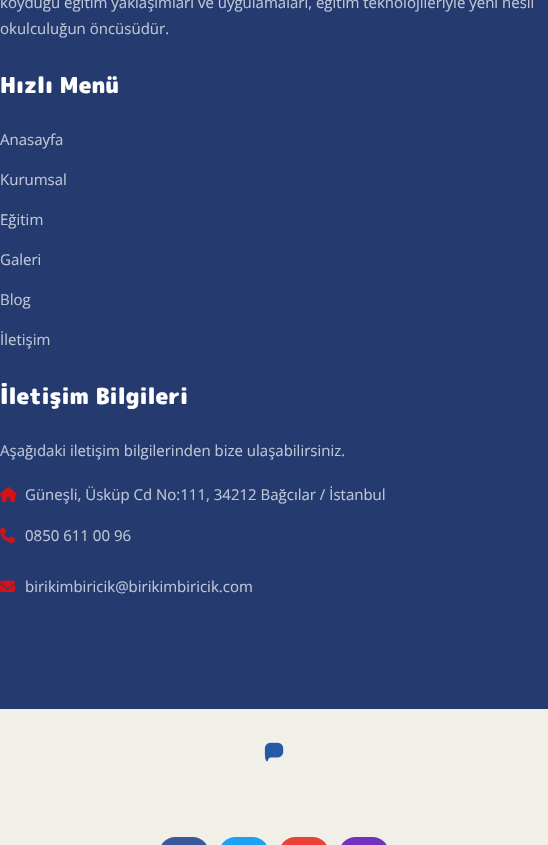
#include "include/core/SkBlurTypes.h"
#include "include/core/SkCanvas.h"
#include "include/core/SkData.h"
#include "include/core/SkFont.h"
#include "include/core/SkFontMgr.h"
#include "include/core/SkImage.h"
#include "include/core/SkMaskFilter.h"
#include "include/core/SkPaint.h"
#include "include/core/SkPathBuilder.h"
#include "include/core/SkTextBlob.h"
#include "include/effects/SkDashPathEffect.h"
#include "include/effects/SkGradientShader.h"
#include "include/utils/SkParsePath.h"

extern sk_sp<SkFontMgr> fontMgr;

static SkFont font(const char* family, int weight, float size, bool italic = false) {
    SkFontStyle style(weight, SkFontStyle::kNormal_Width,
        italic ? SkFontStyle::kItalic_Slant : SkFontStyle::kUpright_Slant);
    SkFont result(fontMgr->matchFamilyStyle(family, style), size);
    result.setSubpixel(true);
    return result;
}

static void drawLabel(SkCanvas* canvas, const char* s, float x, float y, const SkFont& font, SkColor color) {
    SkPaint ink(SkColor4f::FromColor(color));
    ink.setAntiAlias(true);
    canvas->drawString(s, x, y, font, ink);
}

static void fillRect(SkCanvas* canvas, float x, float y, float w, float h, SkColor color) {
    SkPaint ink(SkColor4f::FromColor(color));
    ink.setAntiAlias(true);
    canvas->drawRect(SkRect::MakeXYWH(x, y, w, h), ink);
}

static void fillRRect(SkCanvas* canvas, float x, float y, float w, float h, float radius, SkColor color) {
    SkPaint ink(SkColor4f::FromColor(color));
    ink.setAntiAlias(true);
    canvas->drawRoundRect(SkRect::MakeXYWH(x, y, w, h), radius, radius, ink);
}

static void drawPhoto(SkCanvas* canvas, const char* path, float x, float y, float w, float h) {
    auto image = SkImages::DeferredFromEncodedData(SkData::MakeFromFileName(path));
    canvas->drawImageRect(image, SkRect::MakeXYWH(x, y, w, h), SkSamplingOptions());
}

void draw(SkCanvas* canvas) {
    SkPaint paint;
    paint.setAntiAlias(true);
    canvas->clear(0xFF253B70);
    SkFont font1 = font("Open Sans", 400, 15);
    drawLabel(canvas, "koyduğu eğitim yaklaşımları ve uygulamaları, eğitim teknolojileriyle yeni nesil", 0, 8, font1, 0xFFBEC5D4);
    drawLabel(canvas, "okulculuğun öncüsüdür.", 0, 34, font1, 0xFFBEC5D4);
    SkFont font2 = font("Rounded Mplus 1c", 900, 22);
    drawLabel(canvas, "Hızlı Menü", 0, 93, font2, 0xFFFFFFFF);
    drawLabel(canvas, "Anasayfa", 0, 145, font1, 0xFFBEC5D4);
    drawLabel(canvas, "Kurumsal", 0, 185, font1, 0xFFBEC5D4);
    drawLabel(canvas, "Eğitim", 0, 225, font1, 0xFFBEC5D4);
    drawLabel(canvas, "Galeri", 0, 265, font1, 0xFFBEC5D4);
    drawLabel(canvas, "Blog", 0, 305, font1, 0xFFBEC5D4);
    drawLabel(canvas, "İletişim", 0, 345, font1, 0xFFBEC5D4);
    drawLabel(canvas, "İletişim Bilgileri", 0, 404, font2, 0xFFFFFFFF);
    drawLabel(canvas, "Aşağıdaki iletişim bilgilerinden bize ulaşabilirsiniz.", 0, 456, font1, 0xFFBEC5D4);
    drawPhoto(canvas, "assets/img1.png", 0, 486, 17, 16);
    drawLabel(canvas, "Güneşli, Üsküp Cd No:111, 34212 Bağcılar / İstanbul", 25, 500, font1, 0xFFBEC5D4);
    drawPhoto(canvas, "assets/img2.png", 0, 527, 15, 16);
    drawLabel(canvas, "0850 611 00 96", 25, 541, font1, 0xFFBEC5D4);
    drawPhoto(canvas, "assets/img3.png", 0, 580, 15, 12);
    drawLabel(canvas, "birikimbiricik@birikimbiricik.com", 25, 592, font1, 0xFFBEC5D4);
    fillRect(canvas, 0, 709, 548, 136, 0xFFF0EFE8);
    drawPhoto(canvas, "assets/img4.png", 264, 742, 20, 20);
    fillRRect(canvas, 159, 837, 50, 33, 25, 0xFF3B5998);
    fillRRect(canvas, 219, 837, 50, 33, 25, 0xFF1DA1F2);
    fillRRect(canvas, 279, 837, 50, 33, 25, 0xFFEA4335);
    fillRRect(canvas, 339, 837, 50, 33, 25, 0xFF7232BD);
}
